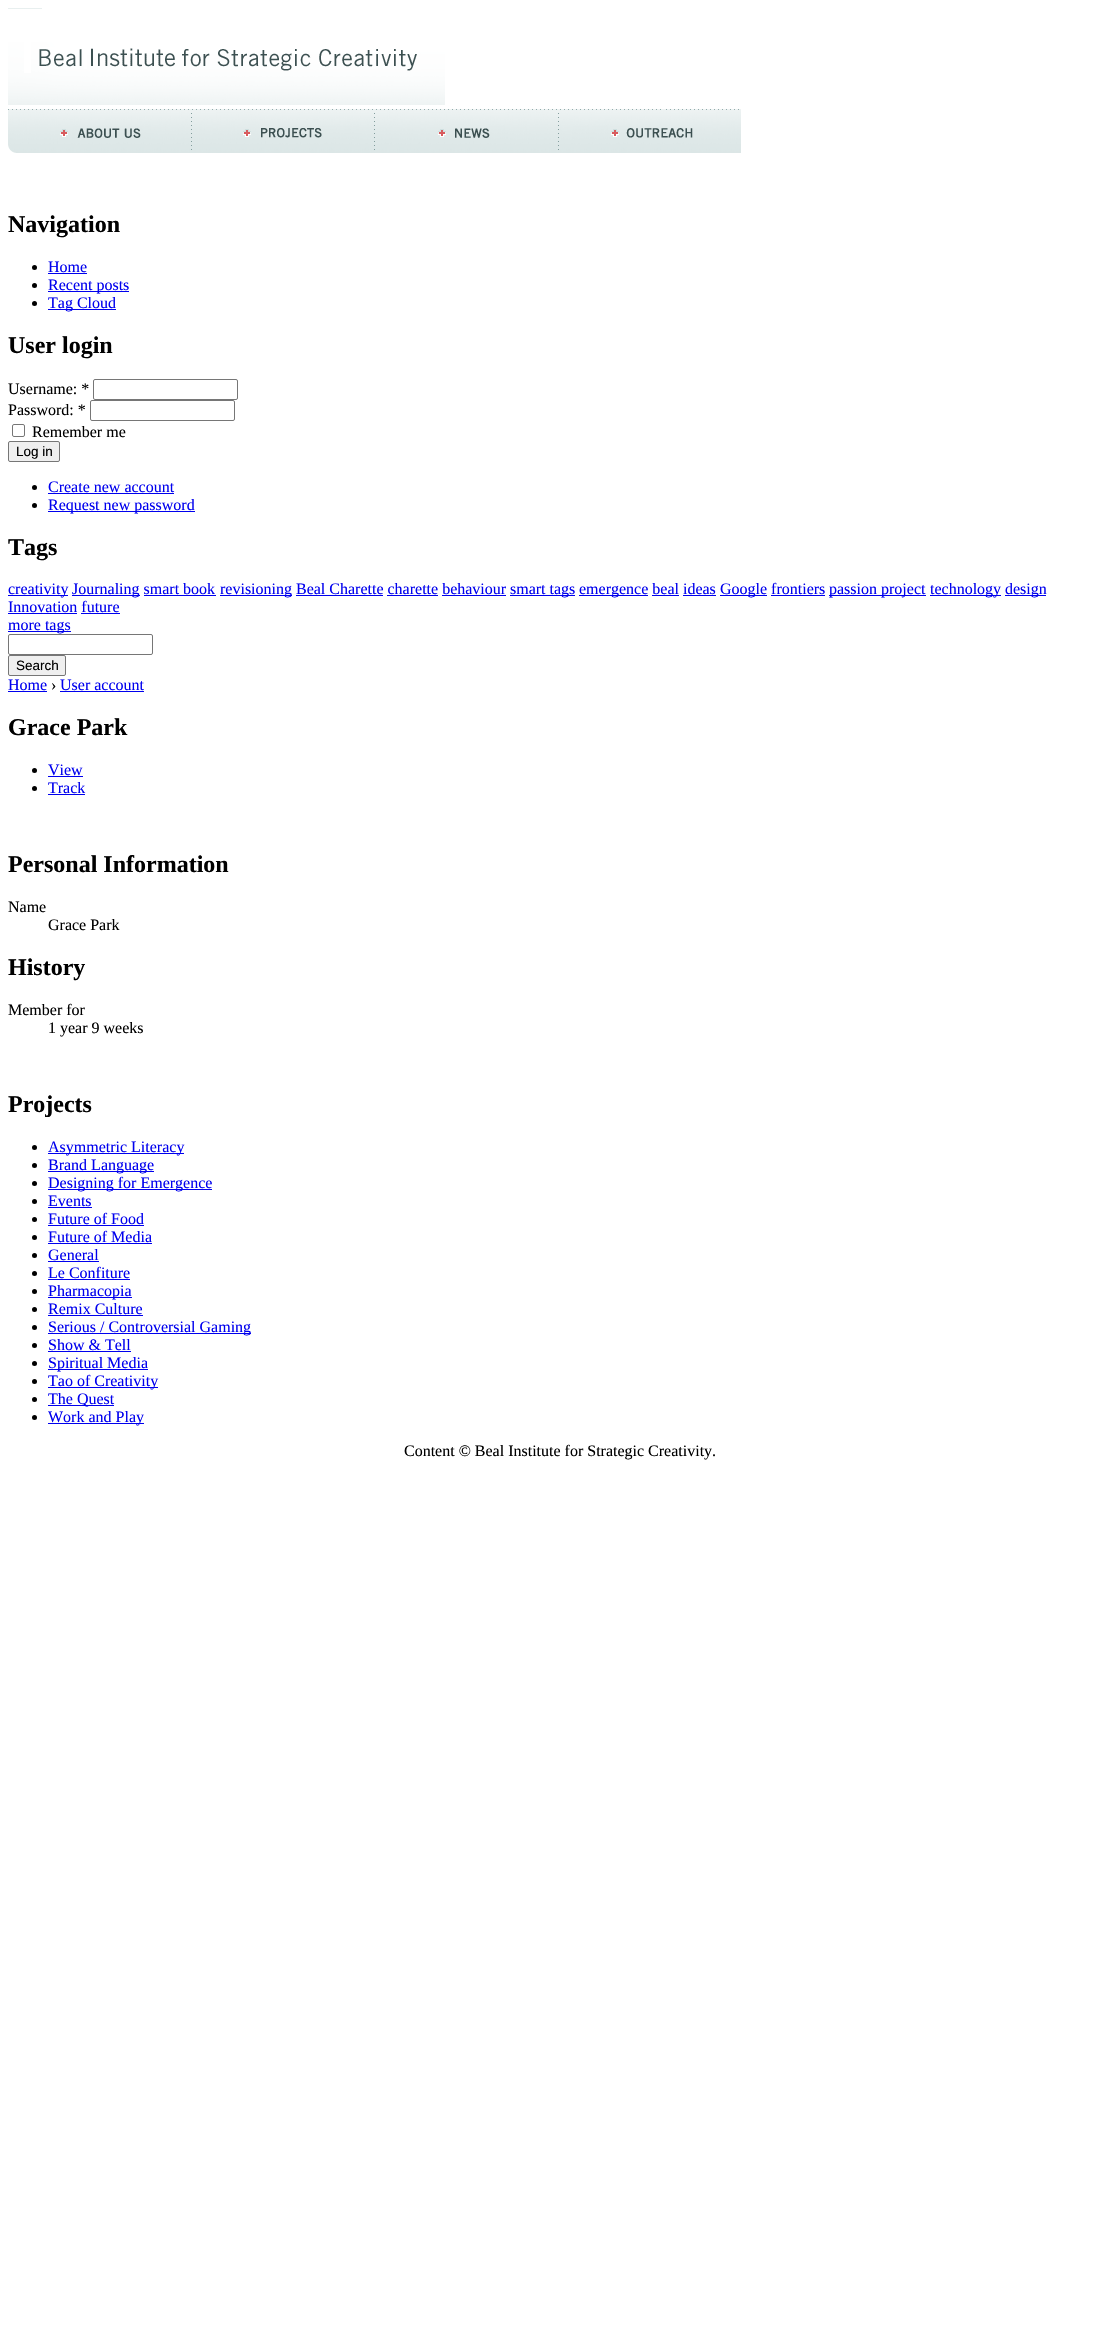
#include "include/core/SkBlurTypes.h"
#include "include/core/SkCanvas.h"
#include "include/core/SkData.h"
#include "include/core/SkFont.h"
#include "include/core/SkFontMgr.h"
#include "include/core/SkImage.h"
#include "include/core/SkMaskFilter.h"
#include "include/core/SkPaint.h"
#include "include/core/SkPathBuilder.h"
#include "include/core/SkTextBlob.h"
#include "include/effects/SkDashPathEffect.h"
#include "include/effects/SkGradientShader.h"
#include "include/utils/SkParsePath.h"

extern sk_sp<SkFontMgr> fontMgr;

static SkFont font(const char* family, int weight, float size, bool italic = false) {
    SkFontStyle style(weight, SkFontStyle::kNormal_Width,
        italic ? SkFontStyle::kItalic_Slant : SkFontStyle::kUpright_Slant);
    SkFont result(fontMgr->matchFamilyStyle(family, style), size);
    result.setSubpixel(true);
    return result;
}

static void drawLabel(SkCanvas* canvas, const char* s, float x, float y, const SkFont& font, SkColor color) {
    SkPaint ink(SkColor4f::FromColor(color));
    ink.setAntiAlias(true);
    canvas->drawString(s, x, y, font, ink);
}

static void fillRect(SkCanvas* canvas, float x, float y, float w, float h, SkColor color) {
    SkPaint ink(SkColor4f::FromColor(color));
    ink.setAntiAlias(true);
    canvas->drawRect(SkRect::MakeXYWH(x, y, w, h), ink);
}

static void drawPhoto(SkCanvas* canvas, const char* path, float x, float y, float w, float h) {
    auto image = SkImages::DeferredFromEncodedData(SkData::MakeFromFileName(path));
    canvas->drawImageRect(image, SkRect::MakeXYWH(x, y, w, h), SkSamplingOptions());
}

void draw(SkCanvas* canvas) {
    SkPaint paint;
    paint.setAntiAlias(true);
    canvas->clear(0xFFFFFFFF);
    drawPhoto(canvas, "assets/img1.png", 8, 8, 437, 97);
    drawPhoto(canvas, "assets/img2.png", 8, 109, 183, 44);
    drawPhoto(canvas, "assets/img3.png", 191, 109, 183, 44);
    drawPhoto(canvas, "assets/img4.png", 374, 109, 184, 44);
    drawPhoto(canvas, "assets/img5.png", 558, 109, 183, 44);
    SkFont font1 = font("Liberation Serif", 700, 24);
    drawLabel(canvas, "Navigation", 8, 232, font1, 0xFF000000);
    paint.setColor(0xFF000000);
    canvas->drawCircle(34.5f, 267.5f, 2.5f, paint);
    SkFont font2 = font("Liberation Serif", 400, 16);
    drawLabel(canvas, "Home", 48, 272, font2, 0xFF0000EE);
    fillRect(canvas, 48, 273, 39, 1, 0xFF0000EE);
    canvas->drawCircle(34.5f, 285.5f, 2.5f, paint);
    fillRect(canvas, 48, 291, 81, 1, 0xFF0000EE);
    drawLabel(canvas, "Recent posts", 48, 290, font2, 0xFF0000EE);
    canvas->drawCircle(34.5f, 303.5f, 2.5f, paint);
    fillRect(canvas, 48, 309, 68, 1, 0xFF0000EE);
    drawLabel(canvas, "Tag Cloud", 48, 308, font2, 0xFF0000EE);
    drawLabel(canvas, "User login", 8, 353, font1, 0xFF000000);
    drawLabel(canvas, "Username: *", 8, 394, font2, 0xFF000000);
    paint.setStroke(true);
    paint.setStrokeWidth(1);
    paint.setColor(0xFF767676);
    canvas->drawRoundRect(SkRect::MakeXYWH(93.5f, 379.5f, 144, 20), 1.5f, 1.5f, paint);
    drawLabel(canvas, "Password: *", 8, 415, font2, 0xFF000000);
    canvas->drawRoundRect(SkRect::MakeXYWH(90.5f, 400.5f, 144, 20), 1.5f, 1.5f, paint);
    canvas->drawRoundRect(SkRect::MakeXYWH(12.5f, 424.5f, 12, 12), 1.5f, 1.5f, paint);
    drawLabel(canvas, "Remember me", 32, 437, font2, 0xFF000000);
    paint.setStroke(false);
    paint.setColor(0xFFEFEFEF);
    canvas->drawRoundRect(SkRect::MakeXYWH(8.5f, 441.5f, 51, 20), 1.5f, 1.5f, paint);
    paint.setStroke(true);
    paint.setColor(0xFF767676);
    canvas->drawRoundRect(SkRect::MakeXYWH(8.5f, 441.5f, 51, 20), 1.5f, 1.5f, paint);
    SkFont font3 = font("Liberation Sans", 400, 13.5f);
    drawLabel(canvas, "Log in", 16, 456, font3, 0xFF000000);
    paint.setStroke(false);
    paint.setColor(0xFF000000);
    canvas->drawCircle(34.5f, 487.5f, 2.5f, paint);
    drawLabel(canvas, "Create new account", 48, 492, font2, 0xFF0000EE);
    fillRect(canvas, 48, 493, 126, 1, 0xFF0000EE);
    canvas->drawCircle(34.5f, 505.5f, 2.5f, paint);
    fillRect(canvas, 48, 511, 147, 1, 0xFF0000EE);
    drawLabel(canvas, "Request new password", 48, 510, font2, 0xFF0000EE);
    drawLabel(canvas, "Tags", 8, 555, font1, 0xFF000000);
    fillRect(canvas, 8, 595, 60, 1, 0xFF0000EE);
    drawLabel(canvas, "creativity", 8, 594, font2, 0xFF0000EE);
    fillRect(canvas, 72, 595, 68, 1, 0xFF0000EE);
    drawLabel(canvas, "Journaling smart book", 72, 594, font2, 0xFF0000EE);
    fillRect(canvas, 220, 595, 72, 1, 0xFF0000EE);
    drawLabel(canvas, "revisioning Beal Charette charette behaviour", 220, 594, font2, 0xFF0000EE);
    fillRect(canvas, 510, 595, 65, 1, 0xFF0000EE);
    drawLabel(canvas, "smart tags", 510, 594, font2, 0xFF0000EE);
    fillRect(canvas, 579, 595, 69, 1, 0xFF0000EE);
    drawLabel(canvas, "emergence beal ideas", 579, 594, font2, 0xFF0000EE);
    fillRect(canvas, 720, 595, 47, 1, 0xFF0000EE);
    drawLabel(canvas, "Google frontiers", 720, 594, font2, 0xFF0000EE);
    fillRect(canvas, 829, 595, 97, 1, 0xFF0000EE);
    drawLabel(canvas, "passion project", 829, 594, font2, 0xFF0000EE);
    fillRect(canvas, 930, 595, 71, 1, 0xFF0000EE);
    drawLabel(canvas, "technology", 930, 594, font2, 0xFF0000EE);
    fillRect(canvas, 1005, 595, 41, 1, 0xFF0000EE);
    drawLabel(canvas, "design", 1005, 594, font2, 0xFF0000EE);
    fillRect(canvas, 144, 595, 72, 1, 0xFF0000EE);
    fillRect(canvas, 296, 595, 87, 1, 0xFF0000EE);
    fillRect(canvas, 387, 595, 51, 1, 0xFF0000EE);
    fillRect(canvas, 442, 595, 64, 1, 0xFF0000EE);
    fillRect(canvas, 652, 595, 27, 1, 0xFF0000EE);
    fillRect(canvas, 683, 595, 33, 1, 0xFF0000EE);
    fillRect(canvas, 771, 595, 54, 1, 0xFF0000EE);
    drawLabel(canvas, "Innovation future", 8, 612, font2, 0xFF0000EE);
    fillRect(canvas, 8, 613, 69, 1, 0xFF0000EE);
    fillRect(canvas, 81, 613, 39, 1, 0xFF0000EE);
    fillRect(canvas, 8, 631, 63, 1, 0xFF0000EE);
    drawLabel(canvas, "more tags", 8, 630, font2, 0xFF0000EE);
    paint.setStroke(true);
    paint.setColor(0xFF767676);
    canvas->drawRoundRect(SkRect::MakeXYWH(8.5f, 634.5f, 144, 20), 1.5f, 1.5f, paint);
    paint.setStroke(false);
    paint.setColor(0xFFEFEFEF);
    canvas->drawRoundRect(SkRect::MakeXYWH(8.5f, 655.5f, 57, 20), 1.5f, 1.5f, paint);
    paint.setStroke(true);
    paint.setColor(0xFF767676);
    canvas->drawRoundRect(SkRect::MakeXYWH(8.5f, 655.5f, 57, 20), 1.5f, 1.5f, paint);
    drawLabel(canvas, "Search", 16, 670, font3, 0xFF000000);
    drawLabel(canvas, "Home", 8, 690, font2, 0xFF0000EE);
    fillRect(canvas, 8, 691, 39, 1, 0xFF0000EE);
    drawLabel(canvas, "›", 51, 690, font2, 0xFF000000);
    drawLabel(canvas, "User account", 60, 690, font2, 0xFF0000EE);
    fillRect(canvas, 60, 691, 84, 1, 0xFF0000EE);
    drawLabel(canvas, "Grace Park", 8, 735, font1, 0xFF000000);
    paint.setStroke(false);
    paint.setColor(0xFF000000);
    canvas->drawCircle(34.5f, 770.5f, 2.5f, paint);
    drawLabel(canvas, "View", 48, 775, font2, 0xFF0000EE);
    fillRect(canvas, 48, 776, 35, 1, 0xFF0000EE);
    canvas->drawCircle(34.5f, 788.5f, 2.5f, paint);
    drawLabel(canvas, "Track", 48, 793, font2, 0xFF0000EE);
    fillRect(canvas, 48, 794, 37, 1, 0xFF0000EE);
    drawLabel(canvas, "Personal Information", 8, 872, font1, 0xFF000000);
    drawLabel(canvas, "Name", 8, 912, font2, 0xFF000000);
    drawLabel(canvas, "Grace Park", 48, 930, font2, 0xFF000000);
    drawLabel(canvas, "History", 8, 975, font1, 0xFF000000);
    drawLabel(canvas, "Member for", 8, 1015, font2, 0xFF000000);
    drawLabel(canvas, "1 year 9 weeks", 48, 1033, font2, 0xFF000000);
    drawLabel(canvas, "Projects", 8, 1112, font1, 0xFF000000);
    canvas->drawCircle(34.5f, 1147.5f, 2.5f, paint);
    fillRect(canvas, 48, 1153, 136, 1, 0xFF0000EE);
    drawLabel(canvas, "Asymmetric Literacy", 48, 1152, font2, 0xFF0000EE);
    canvas->drawCircle(34.5f, 1165.5f, 2.5f, paint);
    fillRect(canvas, 48, 1171, 106, 1, 0xFF0000EE);
    drawLabel(canvas, "Brand Language", 48, 1170, font2, 0xFF0000EE);
    canvas->drawCircle(34.5f, 1183.5f, 2.5f, paint);
    fillRect(canvas, 48, 1189, 164, 1, 0xFF0000EE);
    drawLabel(canvas, "Designing for Emergence", 48, 1188, font2, 0xFF0000EE);
    canvas->drawCircle(34.5f, 1201.5f, 2.5f, paint);
    drawLabel(canvas, "Events", 48, 1206, font2, 0xFF0000EE);
    fillRect(canvas, 48, 1207, 44, 1, 0xFF0000EE);
    canvas->drawCircle(34.5f, 1219.5f, 2.5f, paint);
    drawLabel(canvas, "Future of Food", 48, 1224, font2, 0xFF0000EE);
    fillRect(canvas, 48, 1225, 96, 1, 0xFF0000EE);
    canvas->drawCircle(34.5f, 1237.5f, 2.5f, paint);
    drawLabel(canvas, "Future of Media", 48, 1242, font2, 0xFF0000EE);
    fillRect(canvas, 48, 1243, 104, 1, 0xFF0000EE);
    canvas->drawCircle(34.5f, 1255.5f, 2.5f, paint);
    drawLabel(canvas, "General", 48, 1260, font2, 0xFF0000EE);
    fillRect(canvas, 48, 1261, 51, 1, 0xFF0000EE);
    canvas->drawCircle(34.5f, 1273.5f, 2.5f, paint);
    drawLabel(canvas, "Le Confiture", 48, 1278, font2, 0xFF0000EE);
    fillRect(canvas, 48, 1279, 82, 1, 0xFF0000EE);
    canvas->drawCircle(34.5f, 1291.5f, 2.5f, paint);
    fillRect(canvas, 48, 1297, 84, 1, 0xFF0000EE);
    drawLabel(canvas, "Pharmacopia", 48, 1296, font2, 0xFF0000EE);
    canvas->drawCircle(34.5f, 1309.5f, 2.5f, paint);
    drawLabel(canvas, "Remix Culture", 48, 1314, font2, 0xFF0000EE);
    fillRect(canvas, 48, 1315, 95, 1, 0xFF0000EE);
    canvas->drawCircle(34.5f, 1327.5f, 2.5f, paint);
    fillRect(canvas, 48, 1333, 203, 1, 0xFF0000EE);
    drawLabel(canvas, "Serious / Controversial Gaming", 48, 1332, font2, 0xFF0000EE);
    canvas->drawCircle(34.5f, 1345.5f, 2.5f, paint);
    drawLabel(canvas, "Show & Tell", 48, 1350, font2, 0xFF0000EE);
    fillRect(canvas, 48, 1351, 83, 1, 0xFF0000EE);
    canvas->drawCircle(34.5f, 1363.5f, 2.5f, paint);
    fillRect(canvas, 48, 1369, 100, 1, 0xFF0000EE);
    drawLabel(canvas, "Spiritual Media", 48, 1368, font2, 0xFF0000EE);
    canvas->drawCircle(34.5f, 1381.5f, 2.5f, paint);
    fillRect(canvas, 48, 1387, 110, 1, 0xFF0000EE);
    drawLabel(canvas, "Tao of Creativity", 48, 1386, font2, 0xFF0000EE);
    canvas->drawCircle(34.5f, 1399.5f, 2.5f, paint);
    fillRect(canvas, 48, 1405, 66, 1, 0xFF0000EE);
    drawLabel(canvas, "The Quest", 48, 1404, font2, 0xFF0000EE);
    canvas->drawCircle(34.5f, 1417.5f, 2.5f, paint);
    fillRect(canvas, 48, 1423, 96, 1, 0xFF0000EE);
    drawLabel(canvas, "Work and Play", 48, 1422, font2, 0xFF0000EE);
    drawLabel(canvas, "Content © Beal Institute for Strategic Creativity.", 404, 1456, font2, 0xFF000000);
}
